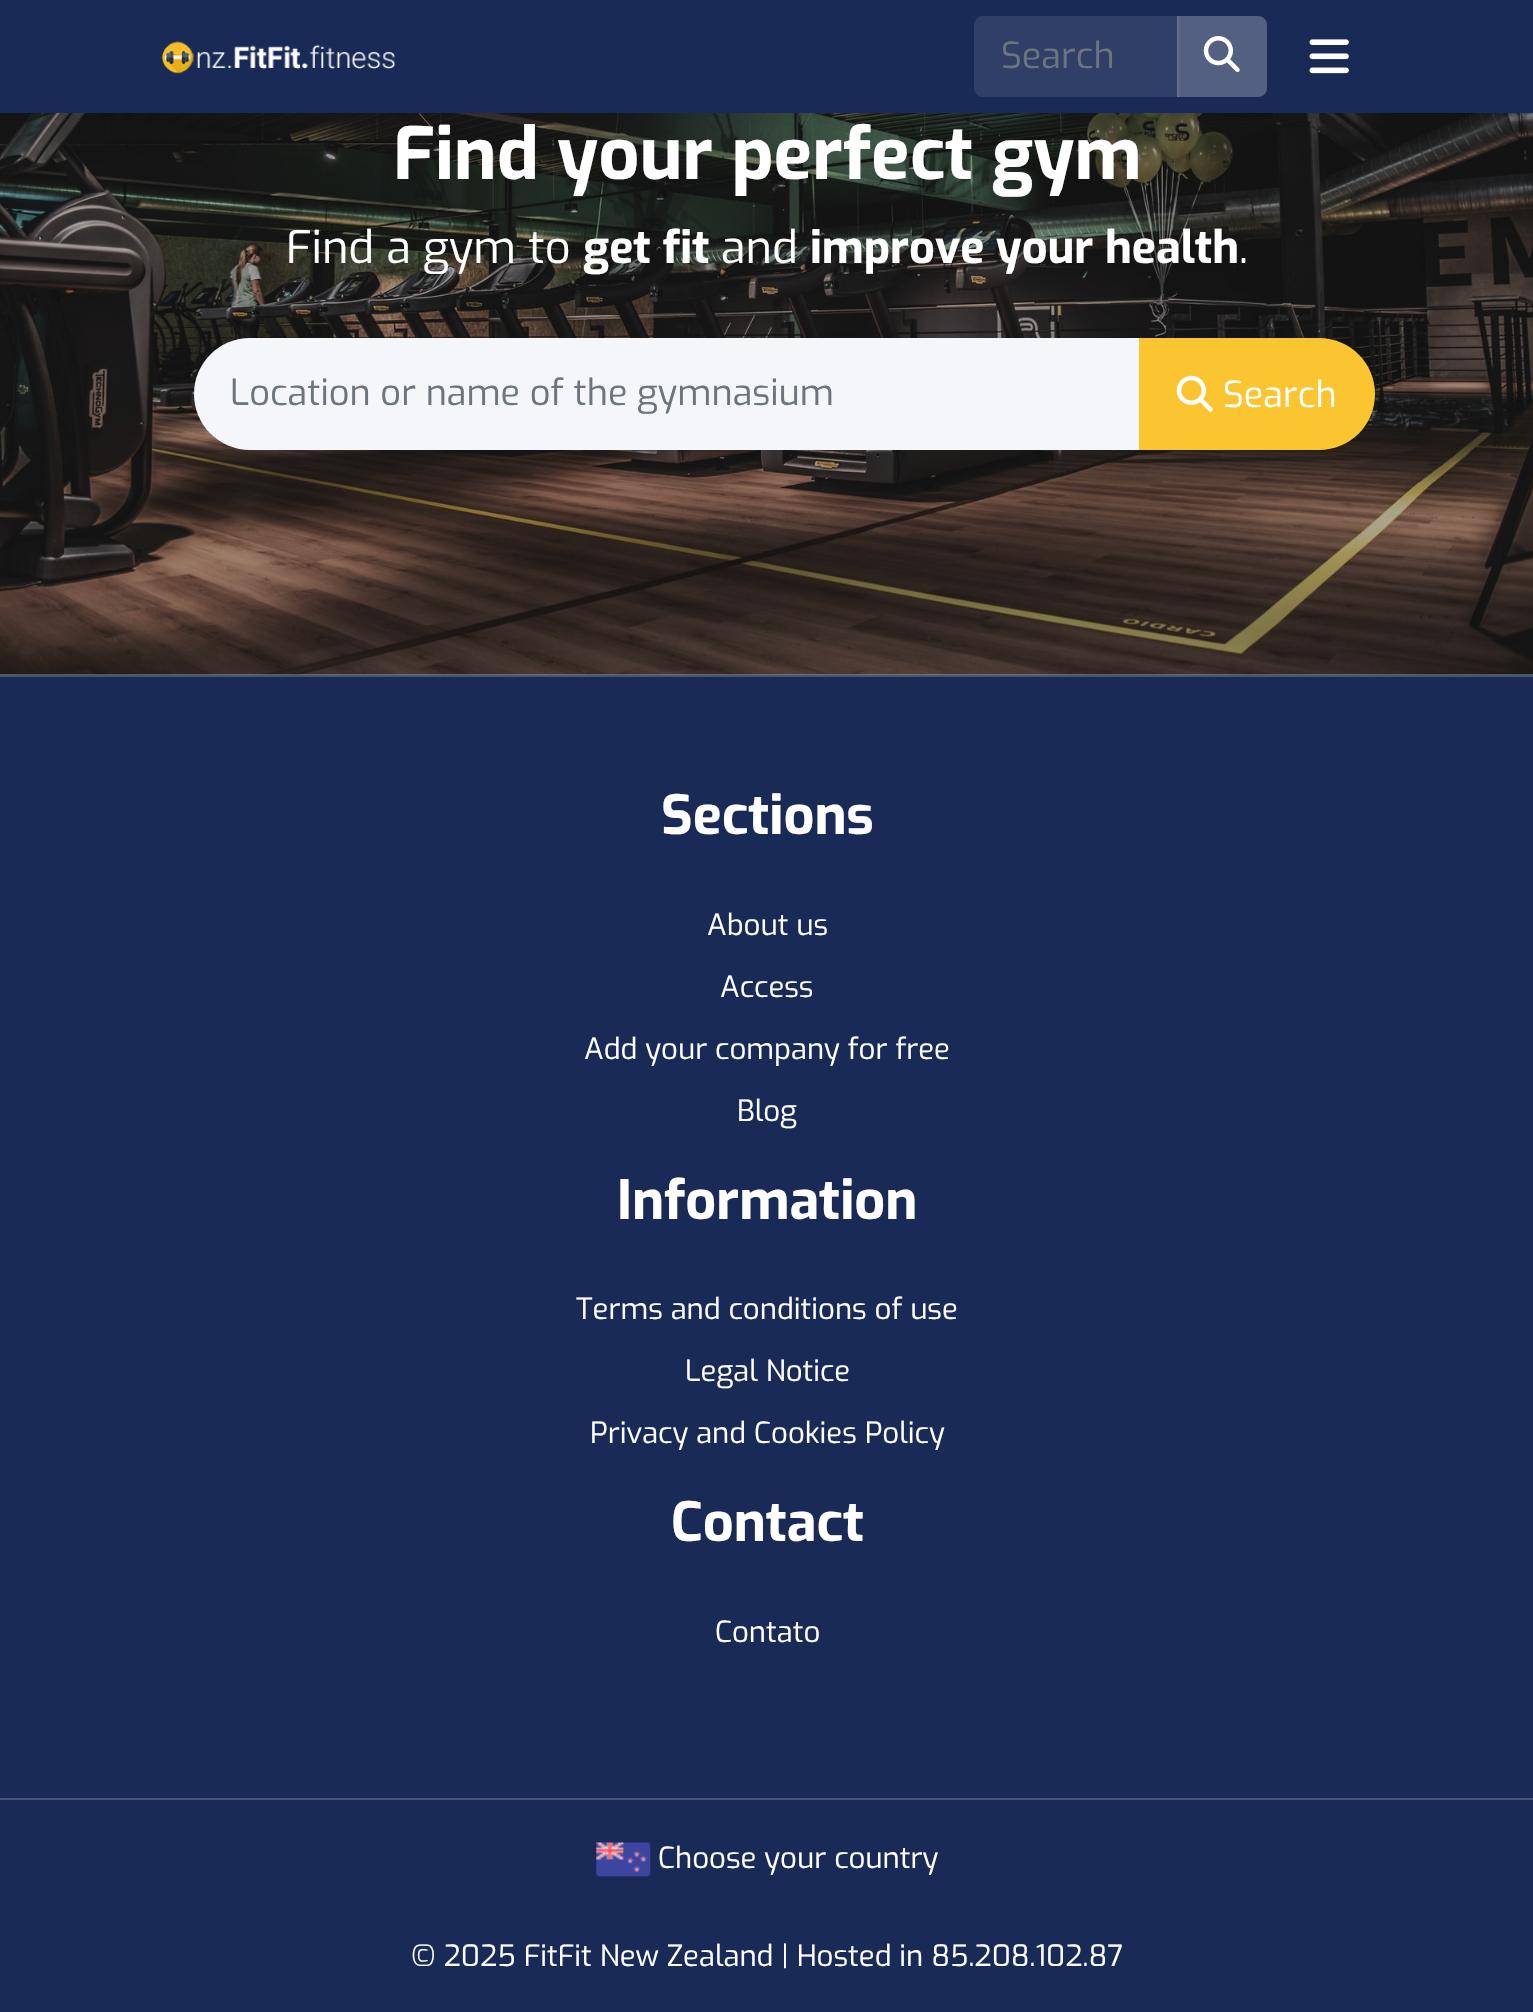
#include "include/core/SkBlurTypes.h"
#include "include/core/SkCanvas.h"
#include "include/core/SkData.h"
#include "include/core/SkFont.h"
#include "include/core/SkFontMgr.h"
#include "include/core/SkImage.h"
#include "include/core/SkMaskFilter.h"
#include "include/core/SkPaint.h"
#include "include/core/SkPathBuilder.h"
#include "include/core/SkTextBlob.h"
#include "include/effects/SkDashPathEffect.h"
#include "include/effects/SkGradientShader.h"
#include "include/utils/SkParsePath.h"

extern sk_sp<SkFontMgr> fontMgr;

static SkFont font(const char* family, int weight, float size, bool italic = false) {
    SkFontStyle style(weight, SkFontStyle::kNormal_Width,
        italic ? SkFontStyle::kItalic_Slant : SkFontStyle::kUpright_Slant);
    SkFont result(fontMgr->matchFamilyStyle(family, style), size);
    result.setSubpixel(true);
    return result;
}

static void drawLabel(SkCanvas* canvas, const char* s, float x, float y, const SkFont& font, SkColor color) {
    SkPaint ink(SkColor4f::FromColor(color));
    ink.setAntiAlias(true);
    canvas->drawString(s, x, y, font, ink);
}

static void fillRect(SkCanvas* canvas, float x, float y, float w, float h, SkColor color) {
    SkPaint ink(SkColor4f::FromColor(color));
    ink.setAntiAlias(true);
    canvas->drawRect(SkRect::MakeXYWH(x, y, w, h), ink);
}

static void fillRRect(SkCanvas* canvas, float x, float y, float w, float h, float radius, SkColor color) {
    SkPaint ink(SkColor4f::FromColor(color));
    ink.setAntiAlias(true);
    canvas->drawRoundRect(SkRect::MakeXYWH(x, y, w, h), radius, radius, ink);
}

static void drawPhoto(SkCanvas* canvas, const char* path, float x, float y, float w, float h) {
    auto image = SkImages::DeferredFromEncodedData(SkData::MakeFromFileName(path));
    canvas->drawImageRect(image, SkRect::MakeXYWH(x, y, w, h), SkSamplingOptions());
}

static SkPath parsePath(const char* data, bool evenOdd = false) {
    SkPath result = *SkParsePath::FromSVGString(data);
    if (evenOdd) result.setFillType(SkPathFillType::kEvenOdd);
    return result;
}

void draw(SkCanvas* canvas) {
    SkPaint paint;
    paint.setAntiAlias(true);
    canvas->clear(0xFFFFFFFF);
    fillRect(canvas, 0, 0, 1533, 113, 0xFF192A56);
    drawPhoto(canvas, "assets/img1.png", 161, 41, 234, 33);
    paint.setColor(0xFF303F67);
    canvas->drawPath(parsePath("M983 16H1179V97H983C978 97 974 93 974 88V25C974 20 978 16 983 16Z"), paint);
    SkFont font1 = font("Exo", 400, 36);
    drawLabel(canvas, "Search", 1001, 68, font1, 0xFF6C757D);
    paint.setColor(0x40FFFFFF);
    canvas->drawPath(parsePath("M1177 16H1258C1263 16 1267 20 1267 25V88C1267 93 1263 97 1258 97H1177Z"), paint);
    drawPhoto(canvas, "assets/img2.png", 1203, 36, 37, 36);
    drawPhoto(canvas, "assets/img3.png", 1309, 39, 40, 35);
    drawPhoto(canvas, "assets/img4.png", 0, 113, 1533, 562);
    SkFont font2 = font("Exo", 700, 72);
    drawLabel(canvas, "Find your perfect gym", 393, 179, font2, 0xFFFFFFFF);
    SkFont font3 = font("Exo", 400, 45);
    drawLabel(canvas, "Find a gym to", 286, 263, font3, 0xFFFFFFFF);
    SkFont font4 = font("Exo", 700, 45);
    drawLabel(canvas, "get fit", 583, 263, font4, 0xFFFFFFFF);
    drawLabel(canvas, "and", 721, 263, font3, 0xFFFFFFFF);
    drawLabel(canvas, "improve your health", 810, 263, font4, 0xFFFFFFFF);
    drawLabel(canvas, ".", 1239, 263, font3, 0xFFFFFFFF);
    fillRRect(canvas, 194, 338, 1147, 112, 56, 0xFFF5F6FA);
    drawLabel(canvas, "Location or name of the gymnasium", 230, 405, font1, 0xFF6C757D);
    paint.setColor(0xFFFBC531);
    canvas->drawPath(parsePath("M1139 338H1319C1350 338 1375 363 1375 394C1375 425 1350 450 1319 450H1139Z"), paint);
    drawPhoto(canvas, "assets/img5.png", 1176, 375, 37, 37);
    drawLabel(canvas, "Search", 1223, 407, font1, 0xFFFFFFFF);
    fillRect(canvas, 0, 677, 1533, 1335, 0xFF192A56);
    fillRect(canvas, 0, 675, 1533, 2, 0xFF475578);
    SkFont font5 = font("Exo", 700, 54);
    drawLabel(canvas, "Sections", 661, 834, font5, 0xFFFFFFFF);
    SkFont font6 = font("Exo", 400, 29.25f);
    drawLabel(canvas, "About us", 707, 935, font6, 0xFFFFFFFF);
    drawLabel(canvas, "Access", 720, 997, font6, 0xFFFFFFFF);
    drawLabel(canvas, "Add your company for free", 584, 1059, font6, 0xFFFFFFFF);
    drawLabel(canvas, "Blog", 737, 1121, font6, 0xFFFFFFFF);
    drawLabel(canvas, "Information", 617, 1219, font5, 0xFFFFFFFF);
    drawLabel(canvas, "Terms and conditions of use", 576, 1319, font6, 0xFFFFFFFF);
    drawLabel(canvas, "Legal Notice", 685, 1381, font6, 0xFFFFFFFF);
    drawLabel(canvas, "Privacy and Cookies Policy", 590, 1443, font6, 0xFFFFFFFF);
    drawLabel(canvas, "Contact", 671, 1541, font5, 0xFFFFFFFF);
    drawLabel(canvas, "Contato", 715, 1642, font6, 0xFFFFFFFF);
    fillRect(canvas, 0, 1798, 1533, 2, 0xFF475578);
    drawPhoto(canvas, "assets/img6.png", 596, 1842, 55, 35);
    drawLabel(canvas, "Choose your country", 658, 1868, font6, 0xFFFFFFFF);
    drawLabel(canvas, "© 2025 FitFit New Zealand | Hosted in 85.208.102.87", 411, 1966, font6, 0xFFFFFFFF);
}
